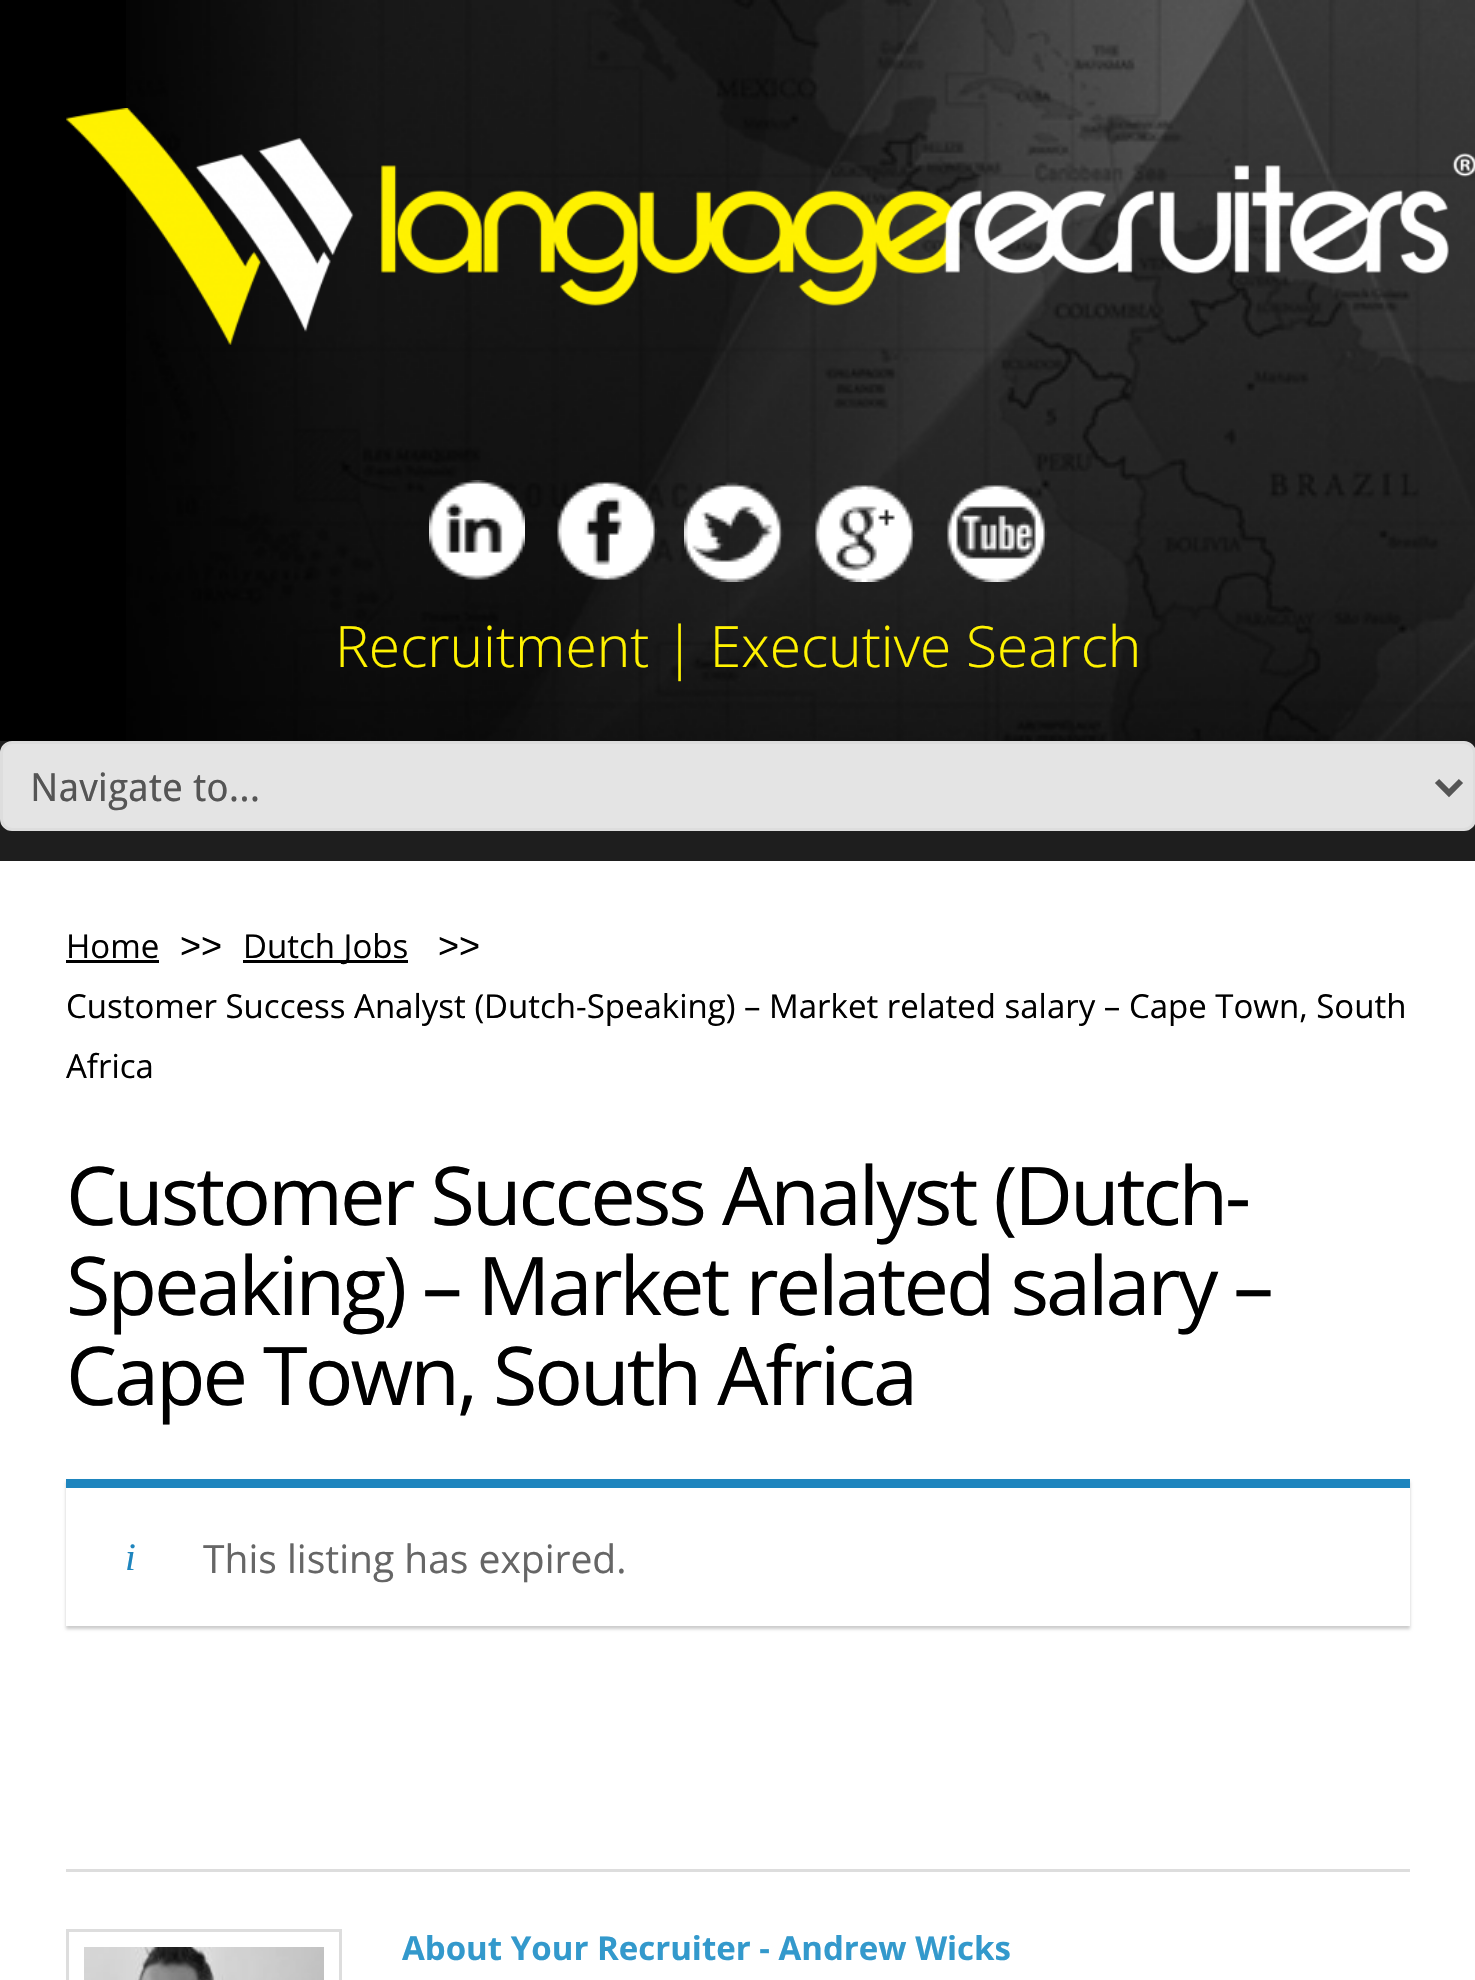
#include "include/core/SkBlurTypes.h"
#include "include/core/SkCanvas.h"
#include "include/core/SkData.h"
#include "include/core/SkFont.h"
#include "include/core/SkFontMgr.h"
#include "include/core/SkImage.h"
#include "include/core/SkMaskFilter.h"
#include "include/core/SkPaint.h"
#include "include/core/SkPathBuilder.h"
#include "include/core/SkTextBlob.h"
#include "include/effects/SkDashPathEffect.h"
#include "include/effects/SkGradientShader.h"
#include "include/utils/SkParsePath.h"

extern sk_sp<SkFontMgr> fontMgr;

static SkFont font(const char* family, int weight, float size, bool italic = false) {
    SkFontStyle style(weight, SkFontStyle::kNormal_Width,
        italic ? SkFontStyle::kItalic_Slant : SkFontStyle::kUpright_Slant);
    SkFont result(fontMgr->matchFamilyStyle(family, style), size);
    result.setSubpixel(true);
    return result;
}

static void drawLabel(SkCanvas* canvas, const char* s, float x, float y, const SkFont& font, SkColor color) {
    SkPaint ink(SkColor4f::FromColor(color));
    ink.setAntiAlias(true);
    canvas->drawString(s, x, y, font, ink);
}

static void drawTracked(SkCanvas* canvas, const char* s, float x, float y, const SkFont& font, const SkPaint& ink, float letter, float word) {
    std::vector<SkGlyphID> glyphs(font.countText(s, strlen(s), SkTextEncoding::kUTF8));
    std::vector<float> xs(glyphs.size());
    font.textToGlyphs(s, strlen(s), SkTextEncoding::kUTF8, glyphs);
    font.getXPos(glyphs, xs, x);
    float extra = 0;
    for (size_t i = 0; i < glyphs.size(); i++) {
        xs[i] += extra;
        extra += letter + word * (glyphs[i] == font.unicharToGlyph(' '));
    }
    canvas->drawTextBlob(SkTextBlob::MakeFromPosHGlyphs(glyphs, xs, y, font), 0, 0, ink);
}

static void fillRect(SkCanvas* canvas, float x, float y, float w, float h, SkColor color) {
    SkPaint ink(SkColor4f::FromColor(color));
    ink.setAntiAlias(true);
    canvas->drawRect(SkRect::MakeXYWH(x, y, w, h), ink);
}

static void drawPhoto(SkCanvas* canvas, const char* path, float x, float y, float w, float h) {
    auto image = SkImages::DeferredFromEncodedData(SkData::MakeFromFileName(path));
    canvas->drawImageRect(image, SkRect::MakeXYWH(x, y, w, h), SkSamplingOptions());
}

static SkPath parsePath(const char* data, bool evenOdd = false) {
    SkPath result = *SkParsePath::FromSVGString(data);
    if (evenOdd) result.setFillType(SkPathFillType::kEvenOdd);
    return result;
}

void draw(SkCanvas* canvas) {
    SkPaint paint;
    paint.setAntiAlias(true);
    canvas->clear(0xFF000000);
    drawPhoto(canvas, "assets/img1.png", 126, 0, 1349, 741);
    drawPhoto(canvas, "assets/img2.png", 66, 108, 1409, 237);
    drawPhoto(canvas, "assets/img3.png", 429, 480, 96, 100);
    drawPhoto(canvas, "assets/img4.png", 557, 482, 100, 98);
    drawPhoto(canvas, "assets/img5.png", 684, 482, 100, 100);
    drawPhoto(canvas, "assets/img6.png", 815, 485, 100, 97);
    drawPhoto(canvas, "assets/img7.png", 947, 485, 100, 97);
    SkFont font1 = font("Open Sans", 300, 57);
    drawLabel(canvas, "Recruitment | Executive Search", 335, 667, font1, 0xFFFFF200);
    fillRect(canvas, 0, 741, 1475, 120, 0xFF1E1E1E);
    paint.setColor(0xFFE4E4E4);
    canvas->drawRoundRect(SkRect::MakeXYWH(1.5f, 742.5f, 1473, 87), 10.5f, 10.5f, paint);
    paint.setStroke(true);
    paint.setStrokeWidth(3);
    paint.setColor(0xFFDDDDDD);
    canvas->drawRoundRect(SkRect::MakeXYWH(1.5f, 742.5f, 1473, 87), 10.5f, 10.5f, paint);
    paint.setStrokeWidth(6);
    paint.setColor(0xFF555555);
    canvas->drawPath(parsePath("M1437 781L1449 793L1461 781"), paint);
    SkFont font2 = font("Droid Sans", 400, 39);
    drawLabel(canvas, "Navigate to...", 30, 801, font2, 0xFF555555);
    fillRect(canvas, 0, 861, 1475, 1119, 0xFFFFFFFF);
    SkFont font3 = font("Open Sans", 400, 33);
    drawLabel(canvas, "Home", 66, 958, font3, 0xFF000000);
    fillRect(canvas, 66, 960, 93, 3, 0xFF000000);
    SkFont font4 = font("Liberation Sans", 400, 36);
    drawLabel(canvas, ">>", 180, 958, font4, 0xFF000000);
    fillRect(canvas, 243, 960, 165, 3, 0xFF000000);
    drawLabel(canvas, "Dutch Jobs", 243, 958, font3, 0xFF000000);
    drawLabel(canvas, ">>", 438, 958, font4, 0xFF000000);
    drawLabel(canvas, "Customer Success Analyst (Dutch-Speaking) – Market related salary – Cape Town, South", 66, 1018, font3, 0xFF000000);
    drawLabel(canvas, "Africa", 66, 1078, font3, 0xFF000000);
    SkFont font5 = font("Open Sans", 400, 81);
    paint.setStroke(false);
    paint.setColor(0xFF000000);
    drawTracked(canvas, "Customer Success Analyst (Dutch-", 66, 1225, font5, paint, -3, 0);
    drawTracked(canvas, "Speaking) – Market related salary –", 66, 1315, font5, paint, -3, 0);
    drawTracked(canvas, "Cape Town, South Africa", 66, 1405, font5, paint, -3, 0);
    canvas->save();
    canvas->clipPath(parsePath("M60 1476H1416V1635H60ZM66 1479H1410V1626H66Z", true), true);
    paint.setColor(0x33000000);
    paint.setMaskFilter(SkMaskFilter::MakeBlur(kNormal_SkBlurStyle, 1.5f));
    canvas->drawRect(SkRect::MakeXYWH(66, 1482, 1344, 147), paint);
    paint.setMaskFilter(nullptr);
    canvas->restore();
    fillRect(canvas, 66, 1479, 1344, 9, 0xFF1E85BE);
    SkFont font6 = font("Liberation Serif", 400, 39, true);
    drawLabel(canvas, "i", 125, 1570, font6, 0xFF1E85BE);
    SkFont font7 = font("Open Sans", 400, 39);
    drawLabel(canvas, "This listing has expired.", 203, 1573, font7, 0xFF666666);
    fillRect(canvas, 66, 1869, 1344, 3, 0xFFDDDDDD);
    paint.setStroke(true);
    paint.setStrokeWidth(3);
    paint.setColor(0xFFDDDDDD);
    canvas->drawRect(SkRect::MakeXYWH(67.5f, 1930.5f, 273, 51), paint);
    drawPhoto(canvas, "assets/img8.png", 84, 1947, 240, 33);
    SkFont font8 = font("Open Sans", 700, 33);
    drawLabel(canvas, "About Your Recruiter - Andrew Wicks", 402, 1960, font8, 0xFF3399CC);
}
